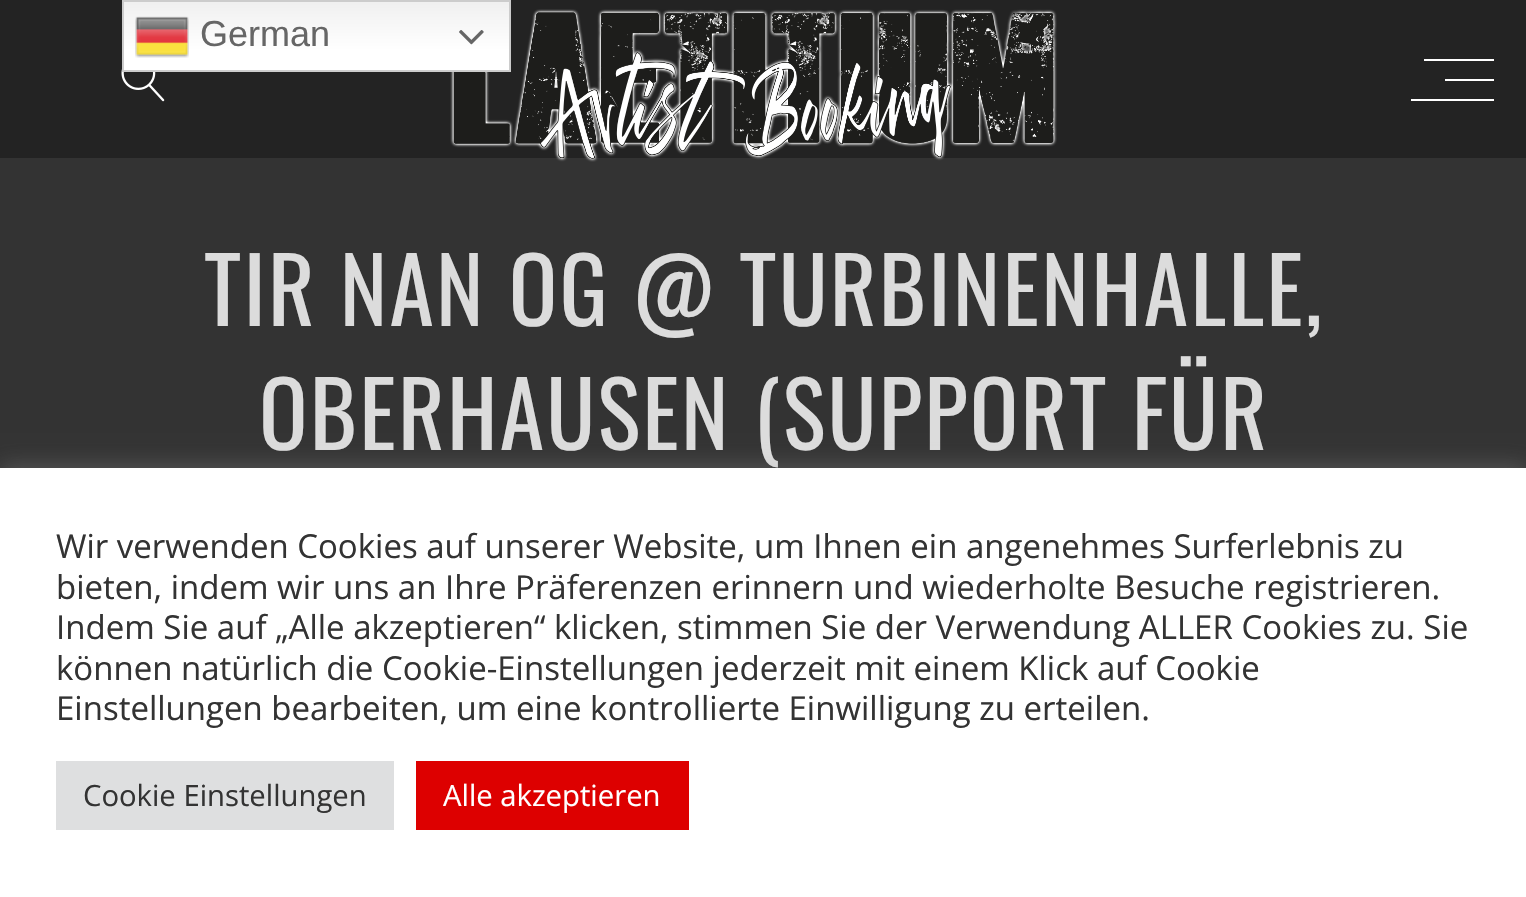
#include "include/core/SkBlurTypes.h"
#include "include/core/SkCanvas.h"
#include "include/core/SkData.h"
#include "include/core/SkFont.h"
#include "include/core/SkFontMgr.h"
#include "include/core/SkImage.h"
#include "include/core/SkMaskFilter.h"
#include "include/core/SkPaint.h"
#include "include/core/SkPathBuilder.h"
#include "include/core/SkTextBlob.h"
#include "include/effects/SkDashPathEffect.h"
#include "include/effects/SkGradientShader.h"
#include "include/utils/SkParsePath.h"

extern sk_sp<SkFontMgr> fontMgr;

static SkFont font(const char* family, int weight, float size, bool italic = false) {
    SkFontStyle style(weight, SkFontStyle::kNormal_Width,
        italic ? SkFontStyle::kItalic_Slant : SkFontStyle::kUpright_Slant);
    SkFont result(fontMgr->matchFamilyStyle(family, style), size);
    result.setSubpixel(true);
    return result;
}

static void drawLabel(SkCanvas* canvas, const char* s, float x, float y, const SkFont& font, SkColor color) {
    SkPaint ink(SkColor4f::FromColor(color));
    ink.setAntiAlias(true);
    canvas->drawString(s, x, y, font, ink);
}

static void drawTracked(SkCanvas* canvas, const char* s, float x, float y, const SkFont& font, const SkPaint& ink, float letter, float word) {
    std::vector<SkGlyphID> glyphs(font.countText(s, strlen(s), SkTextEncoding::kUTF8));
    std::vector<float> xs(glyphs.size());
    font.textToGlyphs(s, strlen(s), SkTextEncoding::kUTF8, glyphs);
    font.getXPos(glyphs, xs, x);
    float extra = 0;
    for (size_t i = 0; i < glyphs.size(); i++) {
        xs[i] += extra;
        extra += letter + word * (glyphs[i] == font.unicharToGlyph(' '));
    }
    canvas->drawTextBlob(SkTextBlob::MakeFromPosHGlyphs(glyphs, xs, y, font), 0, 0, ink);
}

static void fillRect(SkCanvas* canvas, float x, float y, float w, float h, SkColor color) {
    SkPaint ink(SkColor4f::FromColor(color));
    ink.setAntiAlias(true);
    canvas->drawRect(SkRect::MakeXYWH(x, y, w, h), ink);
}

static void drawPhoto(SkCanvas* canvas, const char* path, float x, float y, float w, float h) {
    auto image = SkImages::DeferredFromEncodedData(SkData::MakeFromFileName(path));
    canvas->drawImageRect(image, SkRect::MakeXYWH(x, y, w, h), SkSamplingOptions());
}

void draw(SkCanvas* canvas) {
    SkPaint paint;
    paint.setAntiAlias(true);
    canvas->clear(0xFF333333);
    fillRect(canvas, 0, 0, 1526, 158, 0xFF232323);
    drawPhoto(canvas, "assets/img3.png", 121, 69, 44, 33);
    drawPhoto(canvas, "assets/img4.png", 450, 9, 607, 153);
    {
        const SkColor colors[] = {0xFFEFEFEF, 0xFFFFFFFF};
        const float stops[] = {0, 0.7f};
        const SkPoint ends[] = {{316, 0}, {316, 72}};
        paint.setShader(SkGradientShader::MakeLinear(ends, colors, stops, 2, SkTileMode::kClamp));
        paint.setAlpha(255);
    }
    canvas->drawRect(SkRect::MakeXYWH(124, 2, 385, 68), paint);
    paint.setStroke(true);
    paint.setStrokeWidth(2);
    paint.setShader(nullptr);
    paint.setColor(0xFFCCCCCC);
    canvas->drawRect(SkRect::MakeXYWH(123, 1, 387, 70), paint);
    drawPhoto(canvas, "assets/img1.png", 135, 16, 54, 42);
    SkFont font1 = font("Liberation Sans", 400, 36);
    drawLabel(canvas, "German", 200, 46, font1, 0xFF666666);
    drawPhoto(canvas, "assets/img2.png", 459, 30, 25, 15);
    fillRect(canvas, 1424, 59, 70, 2, 0xFFFFFFFF);
    fillRect(canvas, 1445, 79, 49, 2, 0xFFFFFFFF);
    fillRect(canvas, 1411, 99, 83, 2, 0xFFFFFFFF);
    SkFont font2 = font("Oswald", 400, 90);
    paint.setStroke(false);
    paint.setColor(0xFFDCDCDC);
    drawTracked(canvas, "TIR NAN OG @ TURBINENHALLE,", 204, 326, font2, paint, 2.25f, 0);
    drawTracked(canvas, "OBERHAUSEN (SUPPORT FÜR", 259, 450, font2, paint, 2.25f, 0);
    paint.setColor(0x4DACABAB);
    paint.setMaskFilter(SkMaskFilter::MakeBlur(kNormal_SkBlurStyle, 11));
    canvas->drawRect(SkRect::MakeXYWH(0, 466, 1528, 430), paint);
    paint.setMaskFilter(nullptr);
    fillRect(canvas, 0, 468, 1526, 429, 0xFFFFFFFF);
    SkFont font3 = font("Open Sans", 400, 33);
    drawLabel(canvas, "Wir verwenden Cookies auf unserer Website, um Ihnen ein angenehmes Surferlebnis zu", 56, 558, font3, 0xFF333333);
    drawLabel(canvas, "bieten, indem wir uns an Ihre Präferenzen erinnern und wiederholte Besuche registrieren.", 56, 599, font3, 0xFF333333);
    drawLabel(canvas, "Indem Sie auf „Alle akzeptieren“ klicken, stimmen Sie der Verwendung ALLER Cookies zu. Sie", 56, 639, font3, 0xFF333333);
    drawLabel(canvas, "können natürlich die Cookie-Einstellungen jederzeit mit einem Klick auf Cookie", 56, 680, font3, 0xFF333333);
    drawLabel(canvas, "Einstellungen bearbeiten, um eine kontrollierte Einwilligung zu erteilen.", 56, 720, font3, 0xFF333333);
    fillRect(canvas, 56, 761, 338, 69, 0xFFDEDFE0);
    SkFont font4 = font("Open Sans", 400, 29.25f);
    drawLabel(canvas, "Cookie Einstellungen", 83, 806, font4, 0xFF333333);
    fillRect(canvas, 416, 761, 273, 69, 0xFFDD0000);
    drawLabel(canvas, "Alle akzeptieren", 443, 806, font4, 0xFFFFFFFF);
}
